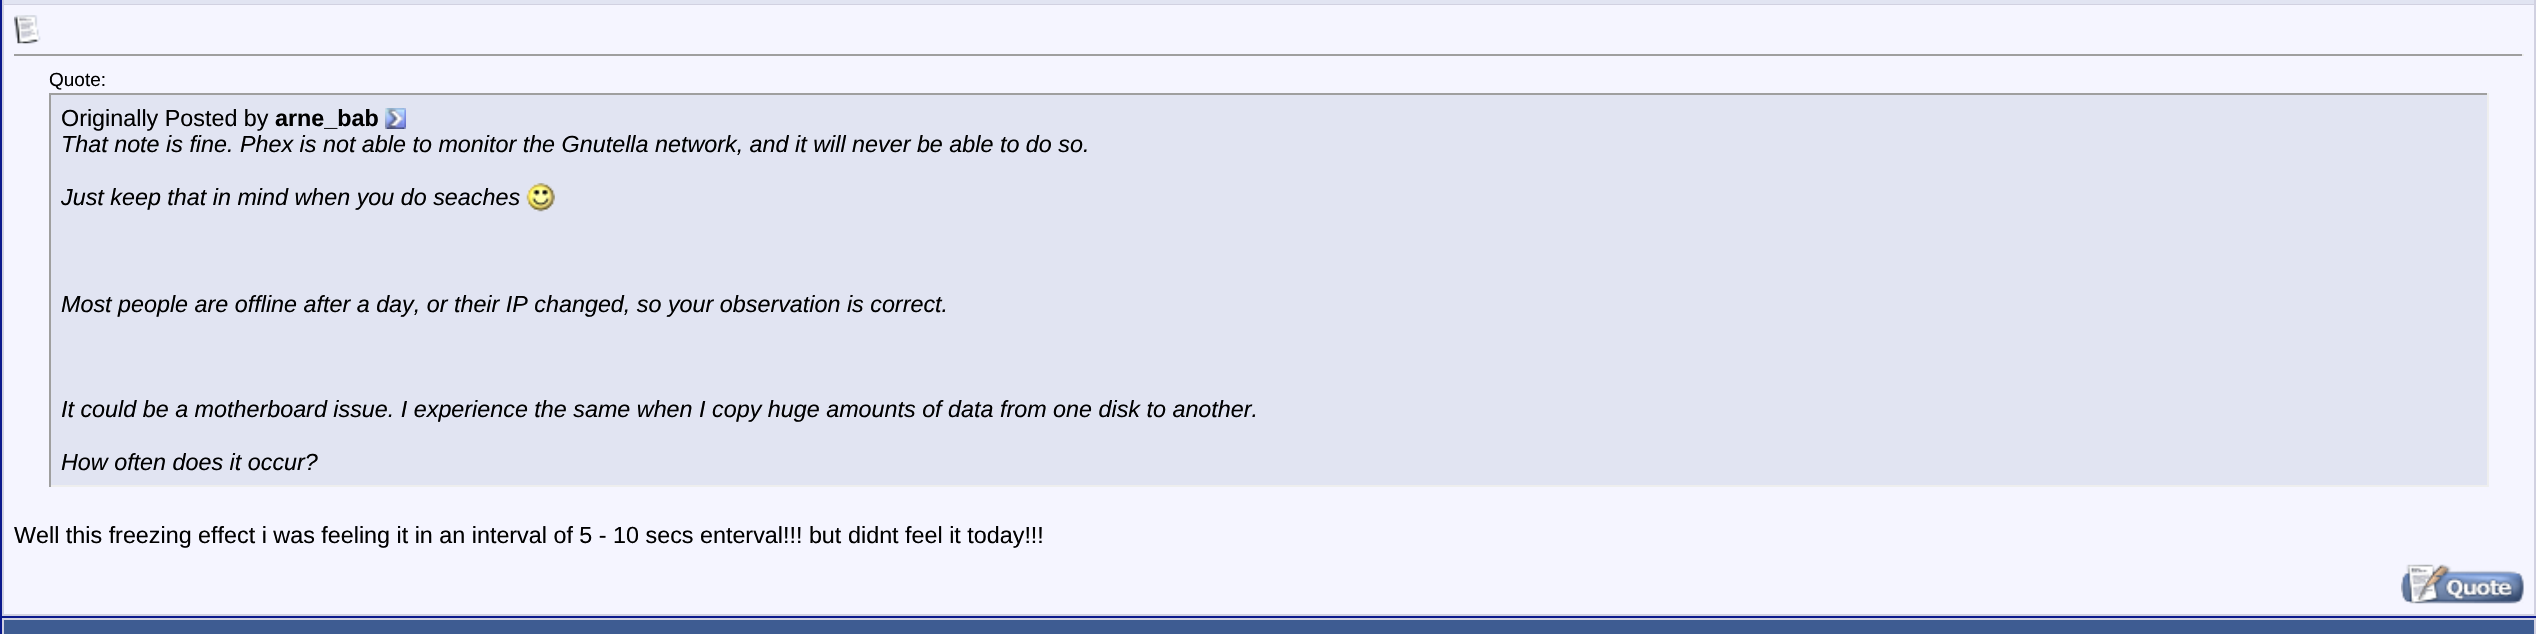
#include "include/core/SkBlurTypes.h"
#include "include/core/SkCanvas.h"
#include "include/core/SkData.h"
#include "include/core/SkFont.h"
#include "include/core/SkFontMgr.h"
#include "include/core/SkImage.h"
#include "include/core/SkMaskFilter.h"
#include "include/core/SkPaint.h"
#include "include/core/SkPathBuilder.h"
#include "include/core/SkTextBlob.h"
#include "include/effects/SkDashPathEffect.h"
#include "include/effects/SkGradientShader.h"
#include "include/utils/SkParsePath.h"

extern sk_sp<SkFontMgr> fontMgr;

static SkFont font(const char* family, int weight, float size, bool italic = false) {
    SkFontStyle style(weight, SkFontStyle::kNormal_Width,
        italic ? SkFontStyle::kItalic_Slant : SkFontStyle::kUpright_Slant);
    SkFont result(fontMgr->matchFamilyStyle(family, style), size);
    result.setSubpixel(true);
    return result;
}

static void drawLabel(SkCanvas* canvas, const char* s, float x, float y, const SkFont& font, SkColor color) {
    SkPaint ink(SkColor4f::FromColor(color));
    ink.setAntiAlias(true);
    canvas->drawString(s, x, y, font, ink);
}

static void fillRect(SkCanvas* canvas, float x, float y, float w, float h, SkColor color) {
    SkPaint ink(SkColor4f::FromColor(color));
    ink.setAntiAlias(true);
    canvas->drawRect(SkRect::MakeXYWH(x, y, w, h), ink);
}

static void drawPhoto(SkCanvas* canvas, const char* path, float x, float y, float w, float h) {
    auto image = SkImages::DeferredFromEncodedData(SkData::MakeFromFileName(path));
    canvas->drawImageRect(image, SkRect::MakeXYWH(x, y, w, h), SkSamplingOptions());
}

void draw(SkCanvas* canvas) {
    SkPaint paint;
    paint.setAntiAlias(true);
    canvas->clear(0xFFD1D1E1);
    paint.setStroke(true);
    paint.setStrokeWidth(2);
    paint.setColor(0xFF0B198C);
    canvas->drawRect(SkRect::MakeXYWH(1, -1, 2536, 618), paint);
    fillRect(canvas, 4, 0, 2530, 4, 0xFFE1E4F2);
    fillRect(canvas, 4, 5, 2530, 609, 0xFFF5F5FF);
    drawPhoto(canvas, "assets/img1.png", 14, 15, 27, 29);
    fillRect(canvas, 14, 54, 2510, 2, 0xFF9F9F9F);
    fillRect(canvas, 2522, 54, 2, 2, 0xFFEEEEEE);
    SkFont font1 = font("Liberation Sans", 400, 19);
    drawLabel(canvas, "Quote:", 49, 86, font1, 0xFF000000);
    fillRect(canvas, 51, 95, 2436, 390, 0xFFE1E4F2);
    fillRect(canvas, 49, 93, 2440, 2, 0xFF9F9F9F);
    fillRect(canvas, 2487, 93, 2, 394, 0xFFEEEEEE);
    fillRect(canvas, 49, 485, 2440, 2, 0xFFEEEEEE);
    fillRect(canvas, 49, 93, 2, 394, 0xFF9F9F9F);
    SkFont font2 = font("Liberation Sans", 400, 23.33f);
    drawLabel(canvas, "Originally Posted by", 61, 126, font2, 0xFF000000);
    SkFont font3 = font("Liberation Sans", 700, 23.33f);
    drawLabel(canvas, "arne_bab", 275, 126, font3, 0xFF000000);
    drawPhoto(canvas, "assets/img2.png", 385, 108, 21, 21);
    SkFont font4 = font("Liberation Sans", 400, 23.33f, true);
    drawLabel(canvas, "That note is fine. Phex is not able to monitor the Gnutella network, and it will never be able to do so.", 61, 152, font4, 0xFF000000);
    drawLabel(canvas, "Just keep that in mind when you do seaches", 61, 205, font4, 0xFF000000);
    drawPhoto(canvas, "assets/img3.png", 526, 183, 29, 29);
    drawLabel(canvas, "Most people are offline after a day, or their IP changed, so your observation is correct.", 61, 312, font4, 0xFF000000);
    drawLabel(canvas, "It could be a motherboard issue. I experience the same when I copy huge amounts of data from one disk to another.", 61, 417, font4, 0xFF000000);
    drawLabel(canvas, "How often does it occur?", 61, 470, font4, 0xFF000000);
    drawLabel(canvas, "Well this freezing effect i was feeling it in an interval of 5 - 10 secs enterval!!! but", 14, 543, font2, 0xFF000000);
    drawLabel(canvas, "didnt feel it today!!!", 848, 543, font2, 0xFF000000);
    drawPhoto(canvas, "assets/img4.png", 2401, 564, 123, 40);
    fillRect(canvas, 0, 618, 2, 16, 0xFF0B198C);
    fillRect(canvas, 4, 620, 2530, 14, 0xFF3E5C92);
}
